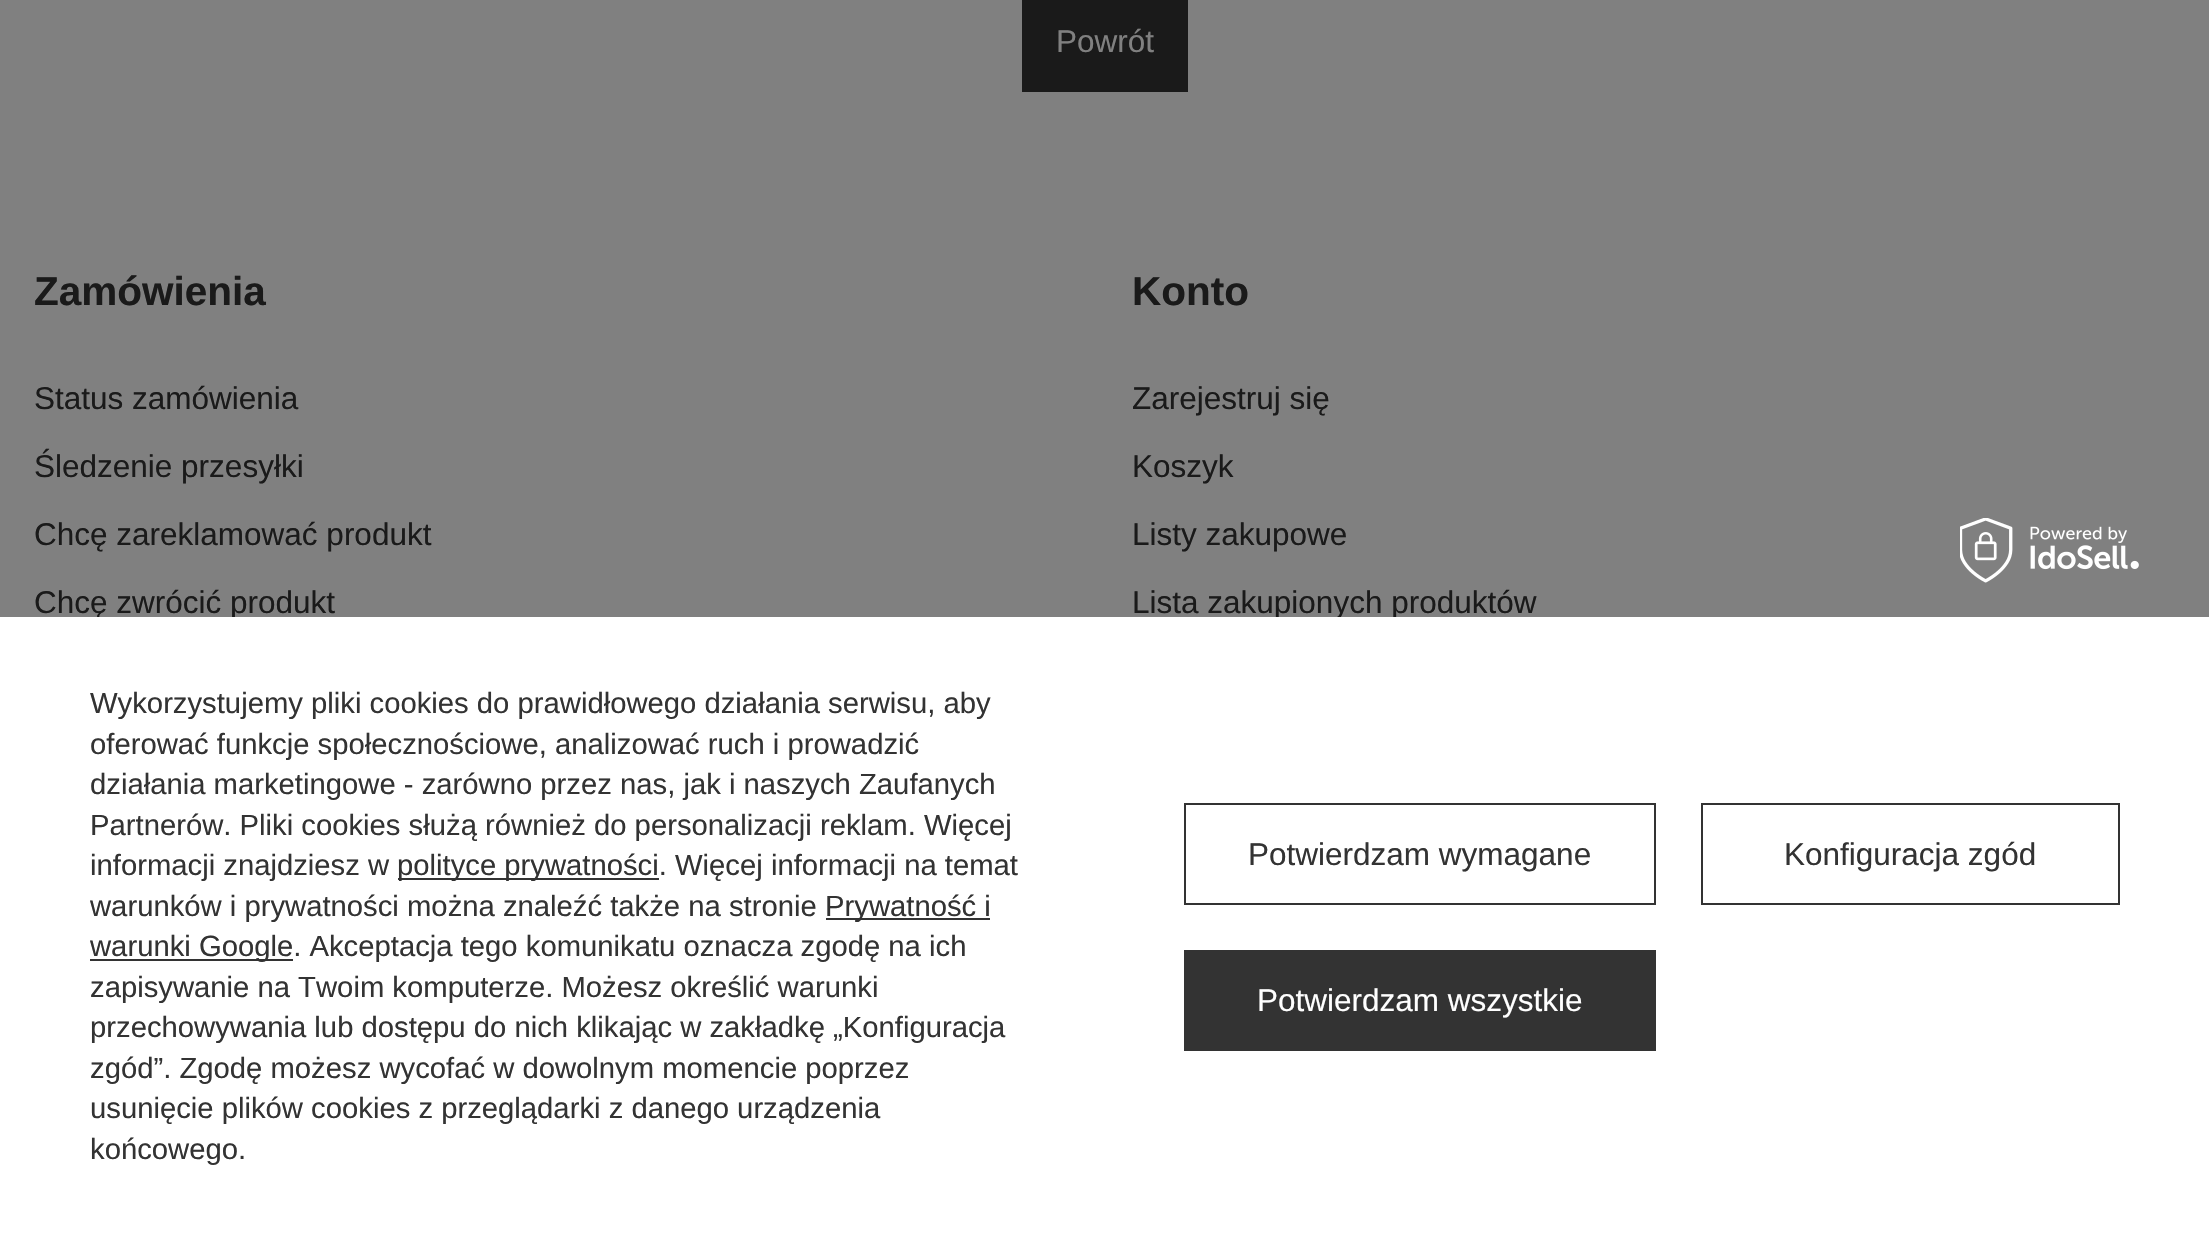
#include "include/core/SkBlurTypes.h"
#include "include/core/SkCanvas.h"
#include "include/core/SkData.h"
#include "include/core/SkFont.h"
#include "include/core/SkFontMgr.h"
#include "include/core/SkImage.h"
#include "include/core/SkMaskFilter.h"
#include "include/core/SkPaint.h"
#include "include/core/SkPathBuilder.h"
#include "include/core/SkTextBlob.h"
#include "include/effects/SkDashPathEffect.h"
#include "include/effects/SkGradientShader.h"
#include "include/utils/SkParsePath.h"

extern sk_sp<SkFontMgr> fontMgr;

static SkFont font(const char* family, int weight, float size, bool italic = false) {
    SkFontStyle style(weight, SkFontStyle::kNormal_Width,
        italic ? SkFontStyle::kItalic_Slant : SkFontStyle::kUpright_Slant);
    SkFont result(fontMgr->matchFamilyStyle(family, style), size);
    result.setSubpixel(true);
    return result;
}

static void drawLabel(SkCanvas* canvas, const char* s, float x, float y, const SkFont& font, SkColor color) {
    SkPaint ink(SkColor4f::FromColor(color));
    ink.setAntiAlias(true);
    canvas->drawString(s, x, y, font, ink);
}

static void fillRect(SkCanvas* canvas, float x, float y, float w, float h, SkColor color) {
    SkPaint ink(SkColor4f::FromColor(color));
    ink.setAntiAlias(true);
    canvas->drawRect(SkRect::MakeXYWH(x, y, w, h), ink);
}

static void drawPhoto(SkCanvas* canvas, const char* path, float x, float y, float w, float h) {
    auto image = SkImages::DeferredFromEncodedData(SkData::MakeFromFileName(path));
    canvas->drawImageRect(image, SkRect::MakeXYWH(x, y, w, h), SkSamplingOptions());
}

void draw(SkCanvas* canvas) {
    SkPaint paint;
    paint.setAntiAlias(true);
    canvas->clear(0xFF808080);
    fillRect(canvas, 1022, 0, 166, 92, 0xFF1A1A1A);
    SkFont font1 = font("Liberation Sans", 400, 31.5f);
    drawLabel(canvas, "Powrót", 1056, 52, font1, 0xFF808080);
    SkFont font2 = font("Liberation Sans", 700, 40.5f);
    drawLabel(canvas, "Zamówienia", 34, 305, font2, 0xFF1A1A1A);
    drawLabel(canvas, "Status zamówienia", 34, 409, font1, 0xFF1A1A1A);
    drawLabel(canvas, "Śledzenie przesyłki", 34, 477, font1, 0xFF1A1A1A);
    drawLabel(canvas, "Chcę zareklamować produkt", 34, 545, font1, 0xFF1A1A1A);
    drawLabel(canvas, "Chcę zwrócić produkt", 34, 613, font1, 0xFF1A1A1A);
    drawLabel(canvas, "Konto", 1132, 305, font2, 0xFF1A1A1A);
    drawLabel(canvas, "Zarejestruj się", 1132, 409, font1, 0xFF1A1A1A);
    drawLabel(canvas, "Koszyk", 1132, 477, font1, 0xFF1A1A1A);
    drawLabel(canvas, "Listy zakupowe", 1132, 545, font1, 0xFF1A1A1A);
    drawLabel(canvas, "Lista zakupionych produktów", 1132, 613, font1, 0xFF1A1A1A);
    fillRect(canvas, 0, 617, 2209, 620, 0xFFFFFFFF);
    drawPhoto(canvas, "assets/img1.png", 1960, 518, 179, 65);
    SkFont font3 = font("Liberation Sans", 400, 29.25f);
    drawLabel(canvas, "Wykorzystujemy pliki cookies do prawidłowego działania serwisu, aby", 90, 713, font3, 0xFF333333);
    drawLabel(canvas, "oferować funkcje społecznościowe, analizować ruch i prowadzić", 90, 754, font3, 0xFF333333);
    drawLabel(canvas, "działania marketingowe - zarówno przez nas, jak i naszych Zaufanych", 90, 794, font3, 0xFF333333);
    drawLabel(canvas, "Partnerów. Pliki cookies służą również do personalizacji reklam. Więcej", 90, 835, font3, 0xFF333333);
    drawLabel(canvas, "informacji znajdziesz w", 90, 875, font3, 0xFF333333);
    fillRect(canvas, 398, 878, 261, 2, 0xFF333333);
    drawLabel(canvas, "polityce prywatności. Więcej informacji na temat", 397, 875, font3, 0xFF333333);
    drawLabel(canvas, "warunków i prywatności można znaleźć także na stronie", 90, 916, font3, 0xFF333333);
    fillRect(canvas, 826, 918, 164, 2, 0xFF333333);
    drawLabel(canvas, "Prywatność i", 825, 916, font3, 0xFF333333);
    fillRect(canvas, 90, 959, 203, 2, 0xFF333333);
    drawLabel(canvas, "warunki Google. Akceptacja tego komunikatu oznacza zgodę na ich", 90, 956, font3, 0xFF333333);
    drawLabel(canvas, "zapisywanie na Twoim komputerze. Możesz określić warunki", 90, 997, font3, 0xFF333333);
    drawLabel(canvas, "przechowywania lub dostępu do nich klikając w zakładkę „Konfiguracja", 90, 1037, font3, 0xFF333333);
    drawLabel(canvas, "zgód”. Zgodę możesz wycofać w dowolnym momencie poprzez", 90, 1078, font3, 0xFF333333);
    drawLabel(canvas, "usunięcie plików cookies z przeglądarki z danego urządzenia", 90, 1118, font3, 0xFF333333);
    drawLabel(canvas, "końcowego.", 90, 1159, font3, 0xFF333333);
    paint.setStroke(true);
    paint.setStrokeWidth(2);
    paint.setColor(0xFF333333);
    canvas->drawRect(SkRect::MakeXYWH(1185, 804, 470, 100), paint);
    drawLabel(canvas, "Potwierdzam wymagane", 1248, 865, font1, 0xFF333333);
    canvas->drawRect(SkRect::MakeXYWH(1702, 804, 417, 100), paint);
    drawLabel(canvas, "Konfiguracja zgód", 1784, 865, font1, 0xFF333333);
    fillRect(canvas, 1184, 950, 472, 101, 0xFF333333);
    drawLabel(canvas, "Potwierdzam wszystkie", 1257, 1011, font1, 0xFFFFFFFF);
}
